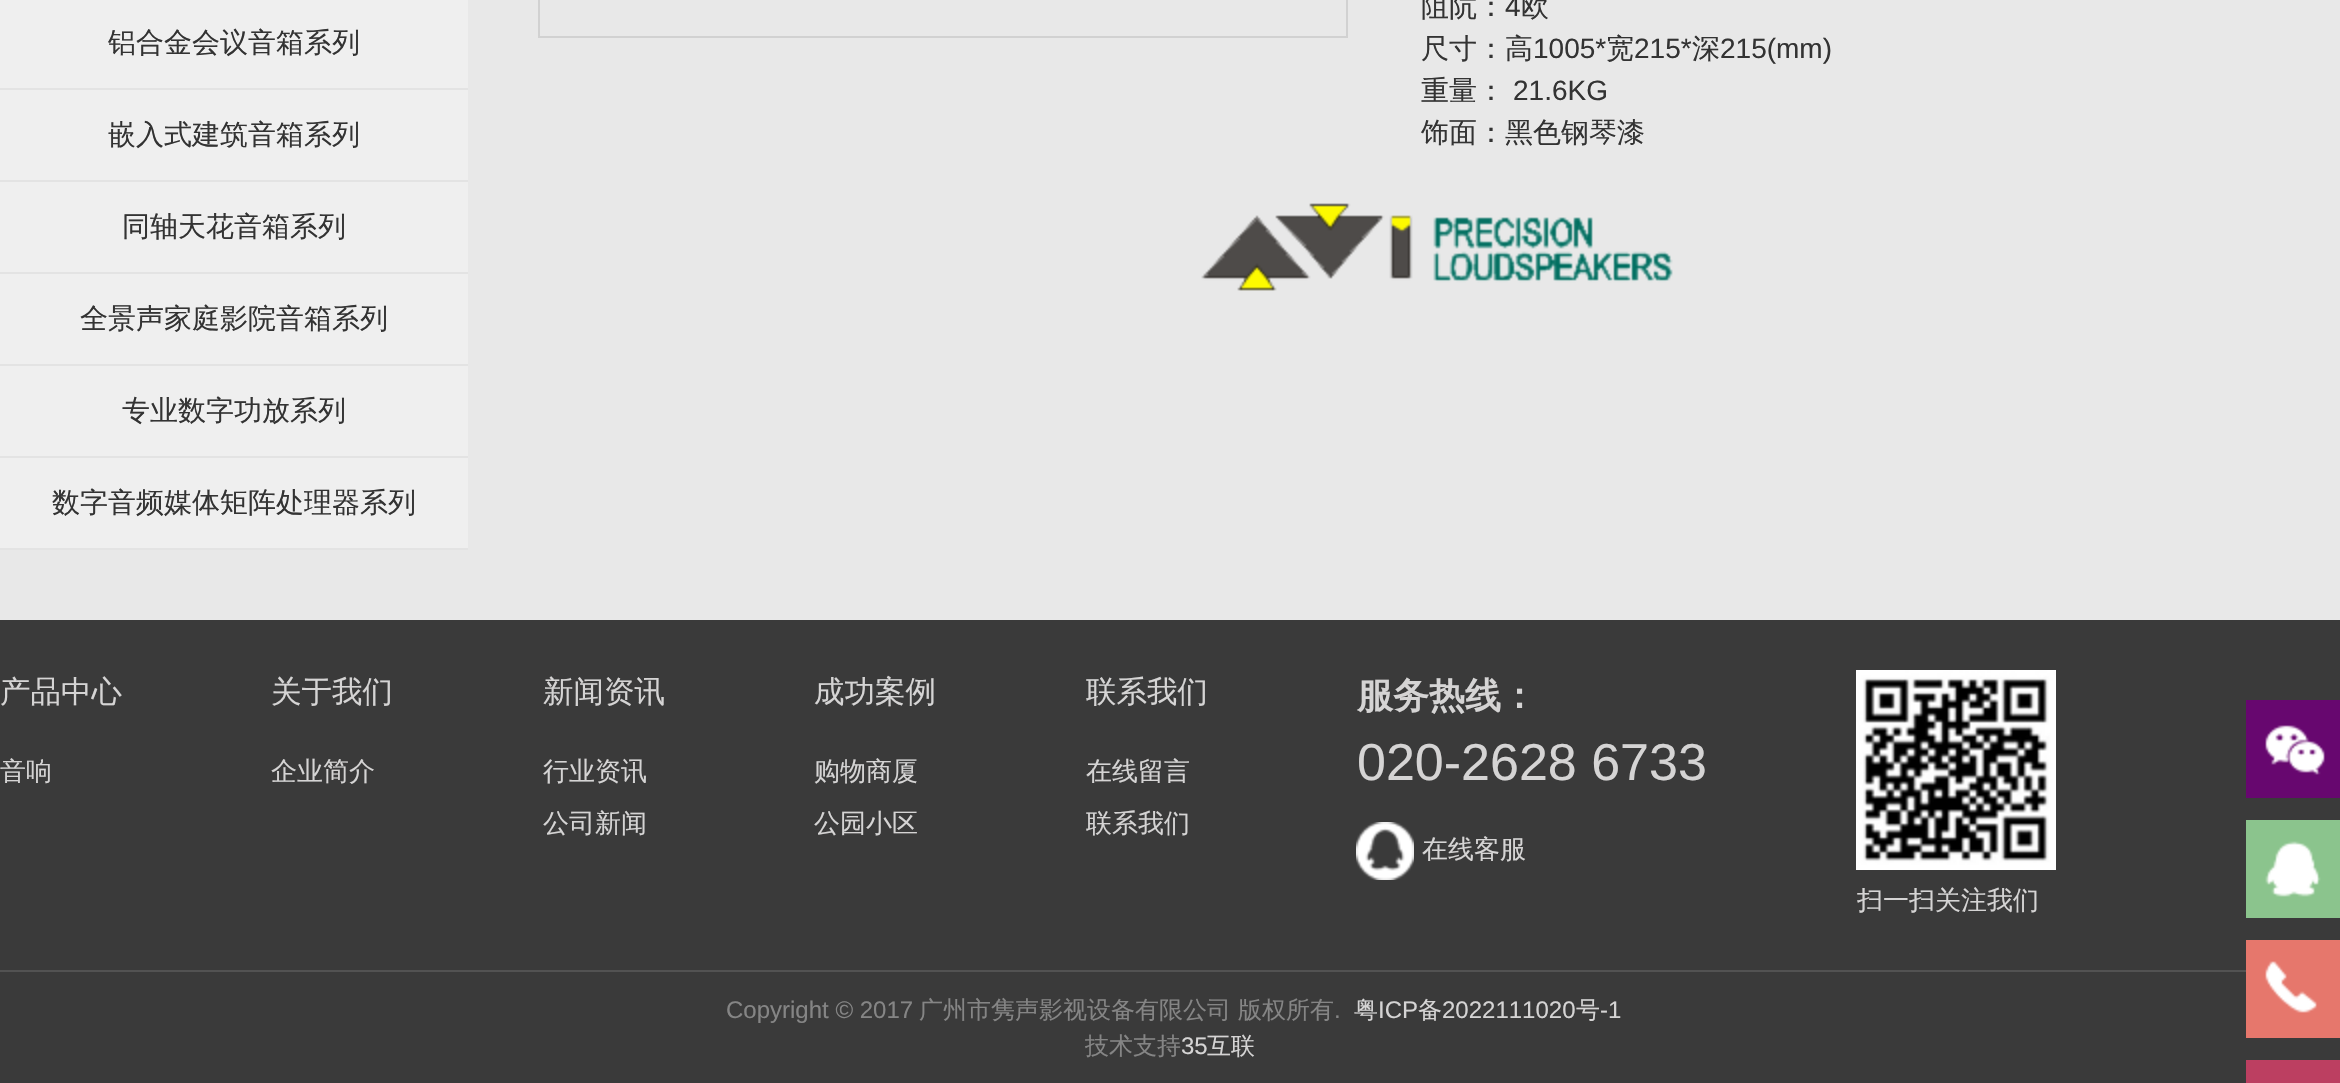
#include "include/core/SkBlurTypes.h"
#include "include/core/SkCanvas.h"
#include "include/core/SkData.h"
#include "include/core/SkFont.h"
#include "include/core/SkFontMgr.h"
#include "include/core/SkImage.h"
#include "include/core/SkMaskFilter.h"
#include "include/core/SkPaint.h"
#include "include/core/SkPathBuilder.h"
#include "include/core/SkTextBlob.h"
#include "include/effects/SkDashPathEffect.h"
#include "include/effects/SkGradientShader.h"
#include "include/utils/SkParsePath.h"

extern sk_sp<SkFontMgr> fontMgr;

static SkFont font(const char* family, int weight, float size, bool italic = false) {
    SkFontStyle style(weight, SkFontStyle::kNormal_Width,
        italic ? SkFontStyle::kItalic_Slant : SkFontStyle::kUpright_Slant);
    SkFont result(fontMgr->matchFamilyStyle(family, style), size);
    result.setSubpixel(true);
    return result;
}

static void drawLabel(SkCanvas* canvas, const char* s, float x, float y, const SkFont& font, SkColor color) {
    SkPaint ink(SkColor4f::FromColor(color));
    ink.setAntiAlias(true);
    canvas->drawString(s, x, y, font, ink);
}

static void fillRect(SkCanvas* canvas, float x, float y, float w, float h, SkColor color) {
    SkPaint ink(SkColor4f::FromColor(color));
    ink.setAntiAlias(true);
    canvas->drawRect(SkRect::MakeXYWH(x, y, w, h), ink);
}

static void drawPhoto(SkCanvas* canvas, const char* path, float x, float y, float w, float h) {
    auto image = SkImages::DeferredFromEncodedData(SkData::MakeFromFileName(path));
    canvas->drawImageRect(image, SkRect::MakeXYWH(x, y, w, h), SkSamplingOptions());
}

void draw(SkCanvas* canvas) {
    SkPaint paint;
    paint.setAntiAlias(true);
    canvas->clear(0xFFE8E8E8);
    fillRect(canvas, 0, 0, 468, 548, 0xFFEFEFEF);
    fillRect(canvas, 0, 88, 468, 2, 0xFFE3E3E3);
    SkFont font1 = font("WenQuanYi Zen Hei", 500, 28);
    drawLabel(canvas, "铝合金会议音箱系列", 108, 52, font1, 0xFF333333);
    fillRect(canvas, 0, 180, 468, 2, 0xFFE3E3E3);
    drawLabel(canvas, "嵌入式建筑音箱系列", 108, 144, font1, 0xFF333333);
    fillRect(canvas, 0, 272, 468, 2, 0xFFE3E3E3);
    drawLabel(canvas, "同轴天花音箱系列", 122, 236, font1, 0xFF333333);
    fillRect(canvas, 0, 364, 468, 2, 0xFFE3E3E3);
    drawLabel(canvas, "全景声家庭影院音箱系列", 80, 328, font1, 0xFF333333);
    fillRect(canvas, 0, 456, 468, 2, 0xFFE3E3E3);
    drawLabel(canvas, "专业数字功放系列", 122, 420, font1, 0xFF333333);
    fillRect(canvas, 0, 548, 468, 2, 0xFFE3E3E3);
    drawLabel(canvas, "数字音频媒体矩阵处理器系列", 52, 512, font1, 0xFF333333);
    paint.setStroke(true);
    paint.setStrokeWidth(2);
    paint.setColor(0xFFD1D1D1);
    canvas->drawRect(SkRect::MakeXYWH(539, -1, 808, 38), paint);
    drawLabel(canvas, "阻阬：", 1421, 16, font1, 0xFF333333);
    SkFont font2 = font("Liberation Sans", 400, 28);
    drawLabel(canvas, "4", 1505, 16, font2, 0xFF333333);
    drawLabel(canvas, "欧", 1521, 16, font1, 0xFF333333);
    drawLabel(canvas, "尺寸：高", 1421, 58, font1, 0xFF333333);
    drawLabel(canvas, "1005*", 1533, 58, font2, 0xFF333333);
    drawLabel(canvas, "宽", 1606, 58, font1, 0xFF333333);
    drawLabel(canvas, "215*", 1634, 58, font2, 0xFF333333);
    drawLabel(canvas, "深", 1692, 58, font1, 0xFF333333);
    drawLabel(canvas, "215(mm)", 1720, 58, font2, 0xFF333333);
    drawLabel(canvas, "重量：", 1421, 100, font1, 0xFF333333);
    drawLabel(canvas, "21.6KG", 1513, 100, font2, 0xFF333333);
    drawLabel(canvas, "饰面：黑色钢琴漆", 1421, 142, font1, 0xFF333333);
    drawPhoto(canvas, "assets/img1.png", 1201, 203, 472, 88);
    fillRect(canvas, 0, 620, 2340, 350, 0xFF3A3A3A);
    SkFont font3 = font("WenQuanYi Zen Hei", 500, 30.5f);
    drawLabel(canvas, "产品中心", 0, 702, font3, 0xFFD5D4D4);
    SkFont font4 = font("WenQuanYi Zen Hei", 500, 26);
    drawLabel(canvas, "音响", 0, 780, font4, 0xFFD5D4D4);
    drawLabel(canvas, "关于我们", 271, 702, font3, 0xFFD5D4D4);
    drawLabel(canvas, "企业简介", 271, 780, font4, 0xFFD5D4D4);
    drawLabel(canvas, "新闻资讯", 543, 702, font3, 0xFFD5D4D4);
    drawLabel(canvas, "行业资讯", 543, 780, font4, 0xFFD5D4D4);
    drawLabel(canvas, "公司新闻", 543, 832, font4, 0xFFD5D4D4);
    drawLabel(canvas, "成功案例", 814, 702, font3, 0xFFD5D4D4);
    drawLabel(canvas, "购物商厦", 814, 780, font4, 0xFFD5D4D4);
    drawLabel(canvas, "公园小区", 814, 832, font4, 0xFFD5D4D4);
    drawLabel(canvas, "联系我们", 1086, 702, font3, 0xFFD5D4D4);
    drawLabel(canvas, "在线留言", 1086, 780, font4, 0xFFD5D4D4);
    drawLabel(canvas, "联系我们", 1086, 832, font4, 0xFFD5D4D4);
    SkFont font5 = font("WenQuanYi Zen Hei", 700, 36);
    drawLabel(canvas, "服务热线：", 1357, 708, font5, 0xFFD5D4D4);
    SkFont font6 = font("Liberation Sans", 400, 52);
    drawLabel(canvas, "020-2628 6733", 1357, 780, font6, 0xFFD5D4D4);
    drawPhoto(canvas, "assets/img2.png", 1356, 822, 58, 58);
    drawLabel(canvas, "在线客服", 1422, 858, font4, 0xFFD5D4D4);
    drawPhoto(canvas, "assets/img3.png", 1856, 670, 200, 200);
    drawLabel(canvas, "扫一扫关注我们", 1857, 909, font4, 0xFFD5D4D4);
    drawPhoto(canvas, "assets/img4.png", 2246, 700, 94, 98);
    drawPhoto(canvas, "assets/img5.png", 2246, 820, 94, 98);
    fillRect(canvas, 0, 972, 2340, 111, 0xFF3A3A3A);
    drawPhoto(canvas, "assets/img6.png", 2246, 940, 94, 98);
    fillRect(canvas, 2246, 1060, 94, 23, 0xFFBC3F61);
    fillRect(canvas, 0, 970, 2246, 2, 0xFF525252);
    SkFont font7 = font("Liberation Sans", 400, 24);
    drawLabel(canvas, "Copyright © 2017", 726, 1018, font7, 0xFF858585);
    SkFont font8 = font("WenQuanYi Zen Hei", 500, 24);
    drawLabel(canvas, "广州市隽声影视设备有限公司", 919, 1018, font8, 0xFF858585);
    drawLabel(canvas, "版权所有", 1238, 1018, font8, 0xFF858585);
    drawLabel(canvas, ".", 1334, 1018, font7, 0xFF858585);
    drawLabel(canvas, "粤", 1354, 1018, font8, 0xFFD5D4D4);
    drawLabel(canvas, "ICP", 1378, 1018, font7, 0xFFD5D4D4);
    drawLabel(canvas, "备", 1418, 1018, font8, 0xFFD5D4D4);
    drawLabel(canvas, "2022111020", 1442, 1018, font7, 0xFFD5D4D4);
    drawLabel(canvas, "号", 1576, 1018, font8, 0xFFD5D4D4);
    drawLabel(canvas, "-1", 1600, 1018, font7, 0xFFD5D4D4);
    drawLabel(canvas, "技术支持", 1085, 1054, font8, 0xFF858585);
    drawLabel(canvas, "35", 1181, 1054, font7, 0xFFD5D4D4);
    drawLabel(canvas, "互联", 1207, 1054, font8, 0xFFD5D4D4);
}
